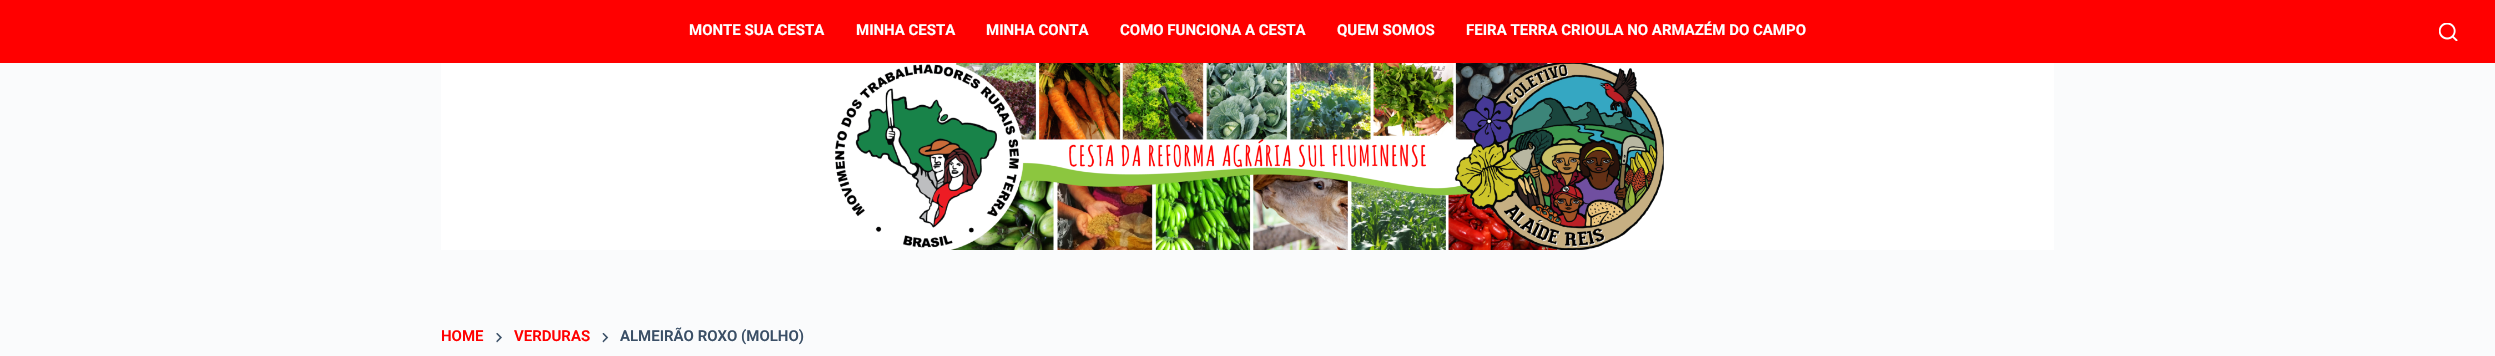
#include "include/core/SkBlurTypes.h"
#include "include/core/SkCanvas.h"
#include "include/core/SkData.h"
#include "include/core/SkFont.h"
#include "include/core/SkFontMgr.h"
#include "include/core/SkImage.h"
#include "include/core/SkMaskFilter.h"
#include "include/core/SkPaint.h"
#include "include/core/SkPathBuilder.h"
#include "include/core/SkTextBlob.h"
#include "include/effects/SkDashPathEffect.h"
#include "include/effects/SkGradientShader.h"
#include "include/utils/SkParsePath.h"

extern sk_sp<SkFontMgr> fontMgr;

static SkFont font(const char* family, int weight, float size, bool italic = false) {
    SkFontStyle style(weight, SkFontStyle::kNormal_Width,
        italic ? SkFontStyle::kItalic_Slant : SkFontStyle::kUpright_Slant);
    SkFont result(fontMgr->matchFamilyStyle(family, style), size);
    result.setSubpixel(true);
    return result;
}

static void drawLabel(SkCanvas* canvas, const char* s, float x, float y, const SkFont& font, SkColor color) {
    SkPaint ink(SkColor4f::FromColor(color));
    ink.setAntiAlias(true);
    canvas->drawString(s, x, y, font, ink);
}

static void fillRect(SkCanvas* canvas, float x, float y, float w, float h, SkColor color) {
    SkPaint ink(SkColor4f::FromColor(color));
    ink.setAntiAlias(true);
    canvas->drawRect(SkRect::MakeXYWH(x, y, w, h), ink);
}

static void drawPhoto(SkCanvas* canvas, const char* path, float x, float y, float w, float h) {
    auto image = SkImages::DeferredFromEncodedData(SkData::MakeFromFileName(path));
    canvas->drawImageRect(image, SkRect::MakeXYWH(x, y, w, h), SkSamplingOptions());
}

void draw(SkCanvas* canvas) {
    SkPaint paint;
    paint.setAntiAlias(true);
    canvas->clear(0xFFFAFBFC);
    fillRect(canvas, 0, 0, 2495, 63, 0xFFFF0000);
    SkFont font1 = font("Roboto", 700, 15);
    drawLabel(canvas, "MONTE SUA CESTA", 689, 35, font1, 0xFFFFFFFF);
    drawLabel(canvas, "MINHA CESTA", 856, 35, font1, 0xFFFFFFFF);
    drawLabel(canvas, "MINHA CONTA", 986, 35, font1, 0xFFFFFFFF);
    drawLabel(canvas, "COMO FUNCIONA A CESTA", 1120, 35, font1, 0xFFFFFFFF);
    drawLabel(canvas, "QUEM SOMOS", 1337, 35, font1, 0xFFFFFFFF);
    drawLabel(canvas, "FEIRA TERRA CRIOULA NO ARMAZÉM DO CAMPO", 1466, 35, font1, 0xFFFFFFFF);
    drawPhoto(canvas, "assets/img1.png", 2439, 23, 19, 18);
    fillRect(canvas, 441, 63, 1613, 187, 0xFFFFFFFF);
    drawPhoto(canvas, "assets/img2.png", 835, 63, 829, 187);
    SkFont font2 = font("Roboto", 600, 15);
    drawLabel(canvas, "HOME", 441, 341, font2, 0xFFFF0000);
    drawPhoto(canvas, "assets/img3.png", 496, 333, 6, 10);
    drawLabel(canvas, "VERDURAS", 514, 341, font2, 0xFFFF0000);
    drawPhoto(canvas, "assets/img4.png", 602, 333, 7, 10);
    drawLabel(canvas, "ALMEIRÃO ROXO (MOLHO)", 620, 341, font2, 0xFF3A4F66);
}
